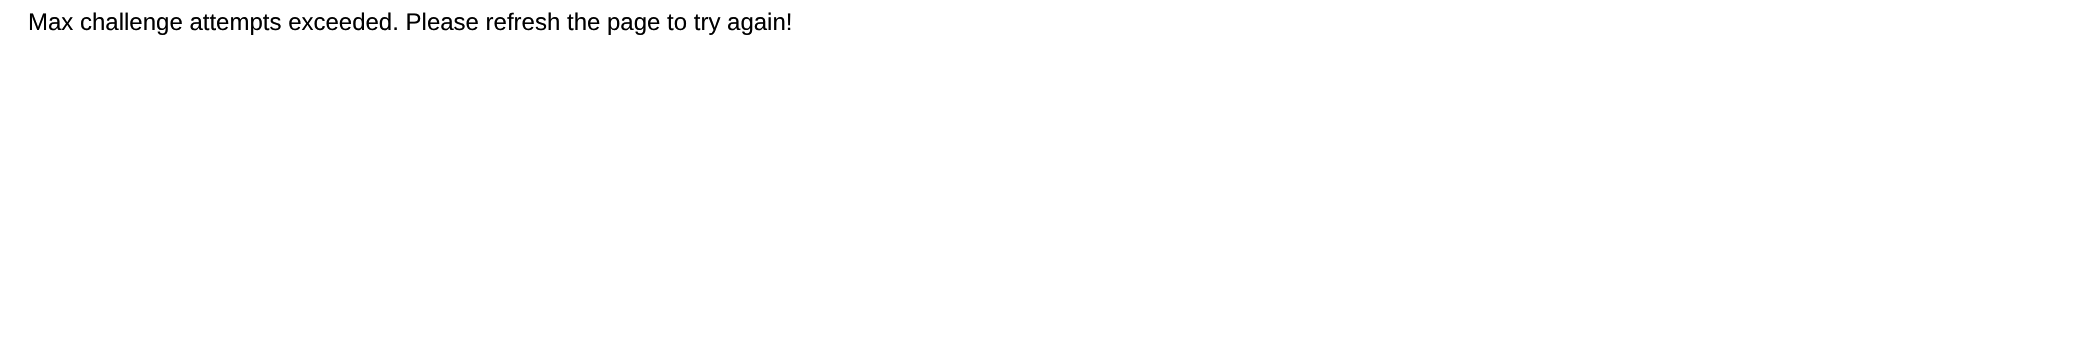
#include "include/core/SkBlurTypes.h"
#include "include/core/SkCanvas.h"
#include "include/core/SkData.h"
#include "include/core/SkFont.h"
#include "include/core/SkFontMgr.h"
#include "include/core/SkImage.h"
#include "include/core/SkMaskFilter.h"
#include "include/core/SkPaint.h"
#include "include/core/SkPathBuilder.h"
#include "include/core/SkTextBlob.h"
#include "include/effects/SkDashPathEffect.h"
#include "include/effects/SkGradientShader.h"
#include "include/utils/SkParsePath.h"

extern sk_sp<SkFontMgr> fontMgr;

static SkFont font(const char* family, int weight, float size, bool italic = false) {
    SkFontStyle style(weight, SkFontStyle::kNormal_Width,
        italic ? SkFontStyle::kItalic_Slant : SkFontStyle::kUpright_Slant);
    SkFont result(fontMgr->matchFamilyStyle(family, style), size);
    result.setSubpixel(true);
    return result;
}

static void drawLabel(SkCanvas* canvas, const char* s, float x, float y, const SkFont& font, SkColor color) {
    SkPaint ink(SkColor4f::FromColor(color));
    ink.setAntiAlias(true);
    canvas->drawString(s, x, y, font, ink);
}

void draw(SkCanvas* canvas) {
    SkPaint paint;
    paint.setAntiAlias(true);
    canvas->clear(0xFFFFFFFF);
    SkFont font1 = font("Liberation Sans", 400, 24);
    drawLabel(canvas, "Max challenge attempts exceeded. Please refresh the page to try again!", 28, 30, font1, 0xFF000000);
}
